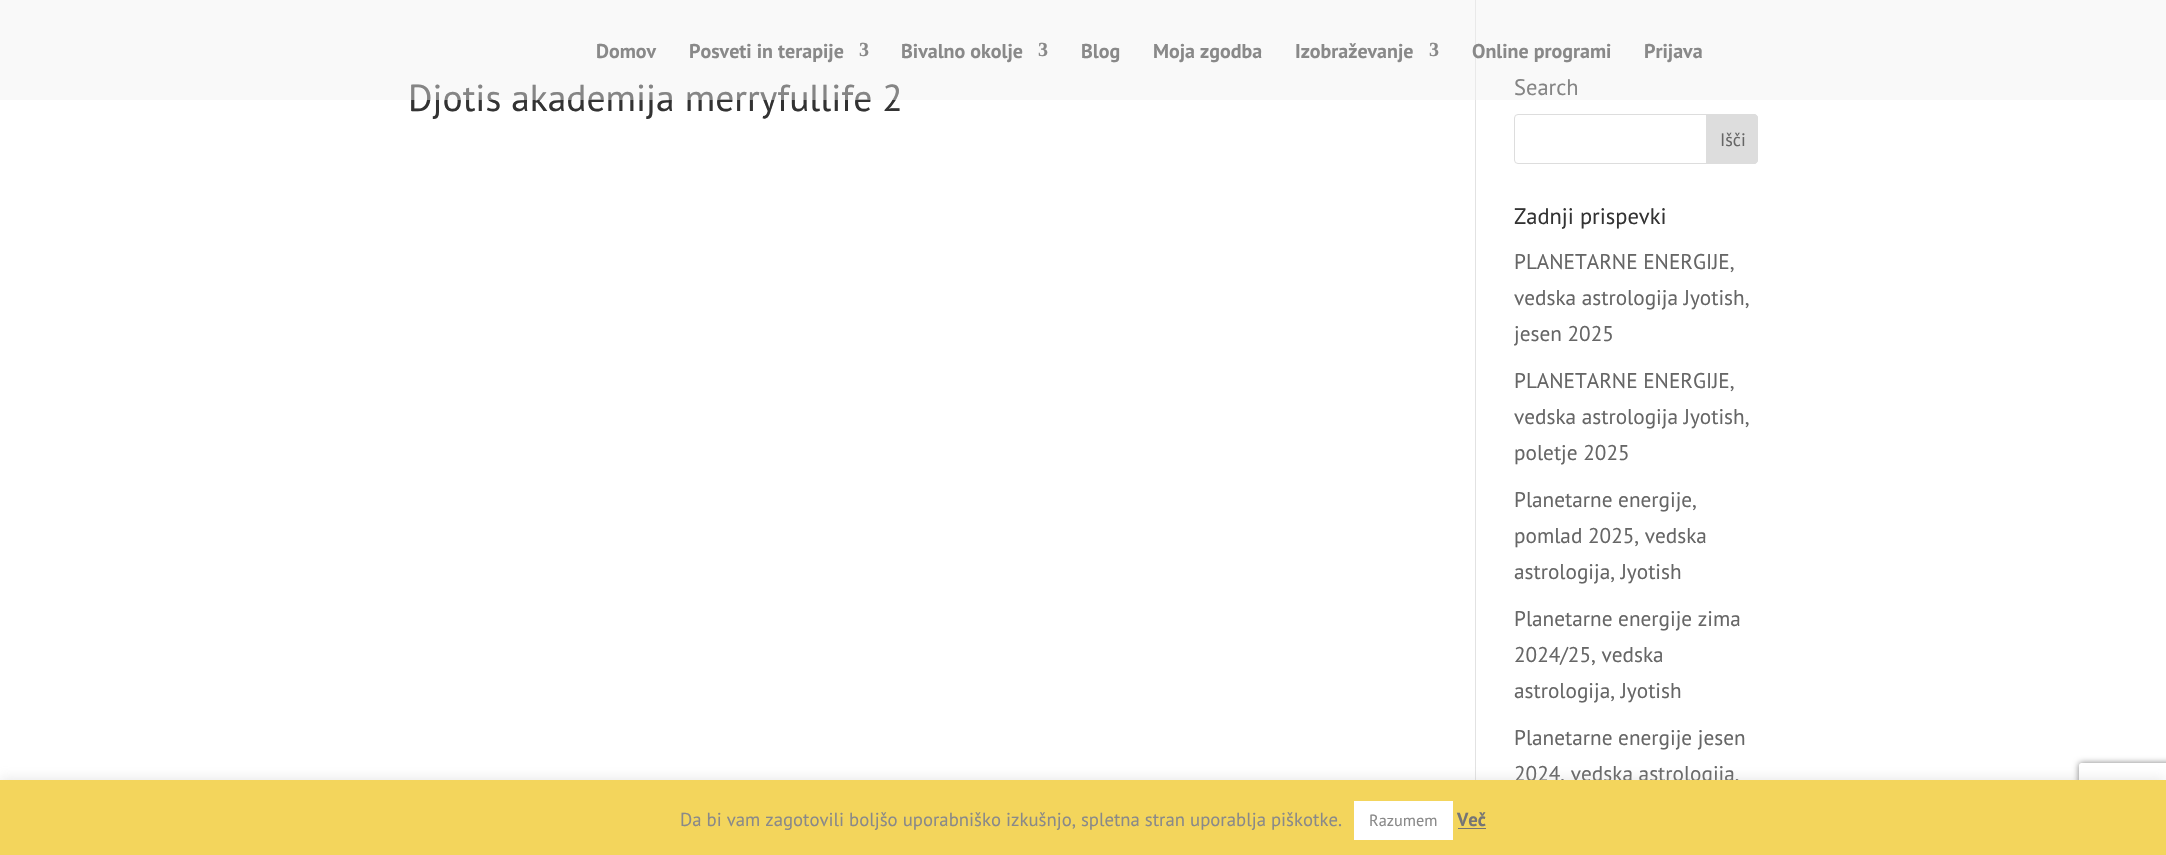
#include "include/core/SkBlurTypes.h"
#include "include/core/SkCanvas.h"
#include "include/core/SkData.h"
#include "include/core/SkFont.h"
#include "include/core/SkFontMgr.h"
#include "include/core/SkImage.h"
#include "include/core/SkMaskFilter.h"
#include "include/core/SkPaint.h"
#include "include/core/SkPathBuilder.h"
#include "include/core/SkTextBlob.h"
#include "include/effects/SkDashPathEffect.h"
#include "include/effects/SkGradientShader.h"
#include "include/utils/SkParsePath.h"

extern sk_sp<SkFontMgr> fontMgr;

static SkFont font(const char* family, int weight, float size, bool italic = false) {
    SkFontStyle style(weight, SkFontStyle::kNormal_Width,
        italic ? SkFontStyle::kItalic_Slant : SkFontStyle::kUpright_Slant);
    SkFont result(fontMgr->matchFamilyStyle(family, style), size);
    result.setSubpixel(true);
    return result;
}

static void drawLabel(SkCanvas* canvas, const char* s, float x, float y, const SkFont& font, SkColor color) {
    SkPaint ink(SkColor4f::FromColor(color));
    ink.setAntiAlias(true);
    canvas->drawString(s, x, y, font, ink);
}

static void fillRect(SkCanvas* canvas, float x, float y, float w, float h, SkColor color) {
    SkPaint ink(SkColor4f::FromColor(color));
    ink.setAntiAlias(true);
    canvas->drawRect(SkRect::MakeXYWH(x, y, w, h), ink);
}

static SkPath parsePath(const char* data, bool evenOdd = false) {
    SkPath result = *SkParsePath::FromSVGString(data);
    if (evenOdd) result.setFillType(SkPathFillType::kEvenOdd);
    return result;
}

void draw(SkCanvas* canvas) {
    SkPaint paint;
    paint.setAntiAlias(true);
    canvas->clear(0xFFFFFFFF);
    fillRect(canvas, 1475, 0, 1, 780, 0xFFE2E2E2);
    SkFont font1 = font("PT Sans", 400, 37.5f);
    drawLabel(canvas, "Djotis akademija merryfullife 2", 408, 111, font1, 0xFF333333);
    SkFont font2 = font("PT Sans", 400, 22.5f);
    drawLabel(canvas, "Search", 1514, 95, font2, 0xFF333333);
    fillRect(canvas, 0, 0, 2166, 100, 0x6EF2F2F2);
    SkFont font3 = font("PT Sans", 700, 20);
    drawLabel(canvas, "Domov", 596, 58, font3, 0xFF898989);
    drawLabel(canvas, "Posveti in terapije", 689, 58, font3, 0xFF898989);
    SkFont font4 = font("Liberation Serif", 700, 20);
    drawLabel(canvas, "3", 859, 56, font4, 0xFF898989);
    drawLabel(canvas, "Bivalno okolje", 901, 58, font3, 0xFF898989);
    drawLabel(canvas, "3", 1038, 56, font4, 0xFF898989);
    drawLabel(canvas, "Blog", 1081, 58, font3, 0xFF898989);
    drawLabel(canvas, "Moja zgodba", 1153, 58, font3, 0xFF898989);
    drawLabel(canvas, "Izobraževanje", 1295, 58, font3, 0xFF898989);
    drawLabel(canvas, "3", 1429, 56, font4, 0xFF898989);
    drawLabel(canvas, "Online programi", 1472, 58, font3, 0xFF898989);
    drawLabel(canvas, "Prijava", 1644, 58, font3, 0xFF898989);
    paint.setStroke(true);
    paint.setStrokeWidth(1);
    paint.setColor(0xFFDDDDDD);
    canvas->drawRoundRect(SkRect::MakeXYWH(1514.5f, 114.5f, 243, 49), 3.5f, 3.5f, paint);
    paint.setStroke(false);
    canvas->drawPath(parsePath("M1706.5 114.5H1754C1756 114.5 1757.5 116 1757.5 118V160C1757.5 162 1756 163.5 1754 163.5H1706.5Z"), paint);
    paint.setStroke(true);
    canvas->drawPath(parsePath("M1706.5 114.5H1754C1756 114.5 1757.5 116 1757.5 118V160C1757.5 162 1756 163.5 1754 163.5H1706.5Z"), paint);
    SkFont font5 = font("PT Sans", 400, 18);
    drawLabel(canvas, "Išči", 1720, 146, font5, 0xFF666666);
    drawLabel(canvas, "Zadnji prispevki", 1514, 224, font2, 0xFF333333);
    SkFont font6 = font("PT Sans", 400, 21.25f);
    drawLabel(canvas, "PLANETARNE ENERGIJE,", 1514, 269, font6, 0xFF666666);
    drawLabel(canvas, "vedska astrologija Jyotish,", 1514, 305, font6, 0xFF666666);
    drawLabel(canvas, "jesen 2025", 1514, 341, font6, 0xFF666666);
    drawLabel(canvas, "PLANETARNE ENERGIJE,", 1514, 388, font6, 0xFF666666);
    drawLabel(canvas, "vedska astrologija Jyotish,", 1514, 424, font6, 0xFF666666);
    drawLabel(canvas, "poletje 2025", 1514, 460, font6, 0xFF666666);
    drawLabel(canvas, "Planetarne energije,", 1514, 507, font6, 0xFF666666);
    drawLabel(canvas, "pomlad 2025, vedska", 1514, 543, font6, 0xFF666666);
    drawLabel(canvas, "astrologija, Jyotish", 1514, 579, font6, 0xFF666666);
    drawLabel(canvas, "Planetarne energije zima", 1514, 626, font6, 0xFF666666);
    drawLabel(canvas, "2024/25, vedska", 1514, 662, font6, 0xFF666666);
    drawLabel(canvas, "astrologija, Jyotish", 1514, 698, font6, 0xFF666666);
    drawLabel(canvas, "Planetarne energije jesen", 1514, 745, font6, 0xFF666666);
    drawLabel(canvas, "2024, vedska astrologija,", 1514, 781, font6, 0xFF666666);
    paint.setStroke(false);
    paint.setColor(0x4DACABAB);
    paint.setMaskFilter(SkMaskFilter::MakeBlur(kNormal_SkBlurStyle, 6));
    canvas->drawRect(SkRect::MakeXYWH(0, 779, 2166, 75), paint);
    paint.setMaskFilter(nullptr);
    canvas->save();
    canvas->clipPath(parsePath("M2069 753H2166V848H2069ZM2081.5 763H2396.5C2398 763 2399 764 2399 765.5V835.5C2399 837 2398 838 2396.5 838H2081.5C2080 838 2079 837 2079 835.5V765.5C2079 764 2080 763 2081.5 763Z", true), true);
    paint.setColor(0xFF808080);
    paint.setMaskFilter(SkMaskFilter::MakeBlur(kNormal_SkBlurStyle, 3));
    canvas->drawRoundRect(SkRect::MakeXYWH(2079, 763, 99, 75), 2.5f, 2.5f, paint);
    paint.setMaskFilter(nullptr);
    canvas->restore();
    fillRect(canvas, 0, 780, 2166, 75, 0xFFF3D55C);
    SkFont font7 = font("PT Sans", 400, 18.75f);
    drawLabel(canvas, "Da bi vam zagotovili boljšo uporabniško izkušnjo, spletna stran uporablja piškotke.", 680, 826, font7, 0xFF898989);
    fillRect(canvas, 1354, 801, 99, 39, 0xFFFFFFFF);
    SkFont font8 = font("PT Sans", 400, 16.25f);
    drawLabel(canvas, "Razumem", 1369, 826, font8, 0xFF898989);
    SkFont font9 = font("PT Sans", 700, 18.75f);
    drawLabel(canvas, "Več", 1457, 826, font9, 0xFF757575);
    fillRect(canvas, 1458, 828, 28, 1, 0xFF757575);
}
